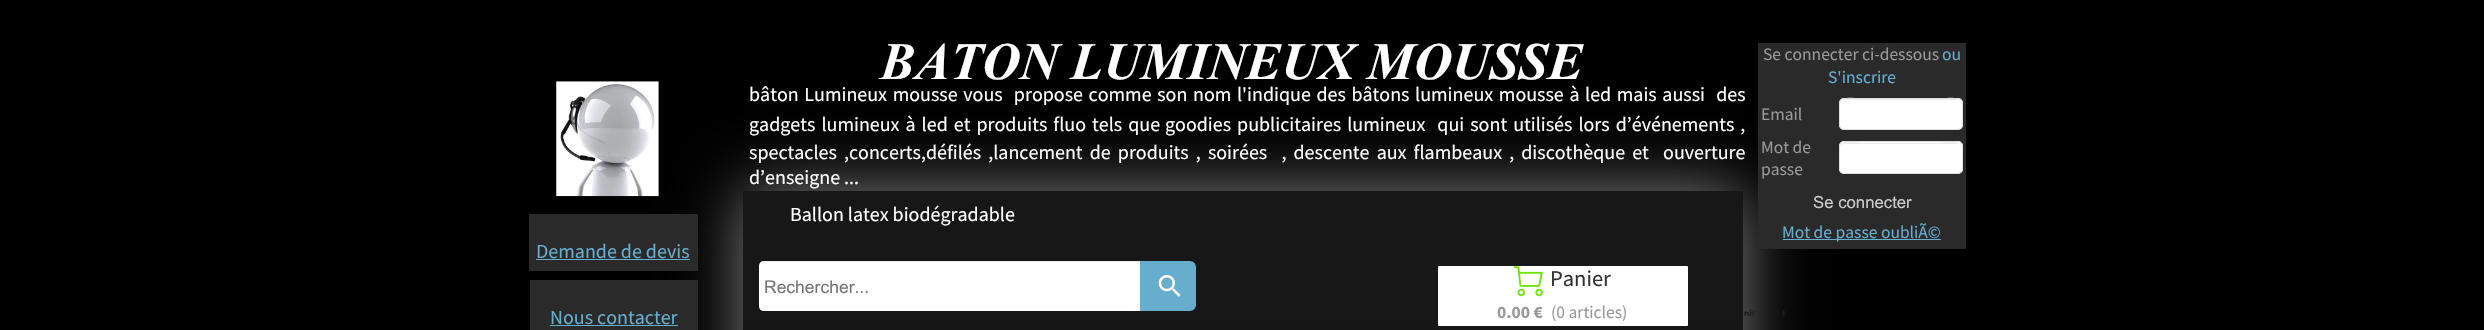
#include "include/core/SkBlurTypes.h"
#include "include/core/SkCanvas.h"
#include "include/core/SkData.h"
#include "include/core/SkFont.h"
#include "include/core/SkFontMgr.h"
#include "include/core/SkImage.h"
#include "include/core/SkMaskFilter.h"
#include "include/core/SkPaint.h"
#include "include/core/SkPathBuilder.h"
#include "include/core/SkTextBlob.h"
#include "include/effects/SkDashPathEffect.h"
#include "include/effects/SkGradientShader.h"
#include "include/utils/SkParsePath.h"

extern sk_sp<SkFontMgr> fontMgr;

static SkFont font(const char* family, int weight, float size, bool italic = false) {
    SkFontStyle style(weight, SkFontStyle::kNormal_Width,
        italic ? SkFontStyle::kItalic_Slant : SkFontStyle::kUpright_Slant);
    SkFont result(fontMgr->matchFamilyStyle(family, style), size);
    result.setSubpixel(true);
    return result;
}

static void drawLabel(SkCanvas* canvas, const char* s, float x, float y, const SkFont& font, SkColor color) {
    SkPaint ink(SkColor4f::FromColor(color));
    ink.setAntiAlias(true);
    canvas->drawString(s, x, y, font, ink);
}

static void drawTracked(SkCanvas* canvas, const char* s, float x, float y, const SkFont& font, const SkPaint& ink, float letter, float word) {
    std::vector<SkGlyphID> glyphs(font.countText(s, strlen(s), SkTextEncoding::kUTF8));
    std::vector<float> xs(glyphs.size());
    font.textToGlyphs(s, strlen(s), SkTextEncoding::kUTF8, glyphs);
    font.getXPos(glyphs, xs, x);
    float extra = 0;
    for (size_t i = 0; i < glyphs.size(); i++) {
        xs[i] += extra;
        extra += letter + word * (glyphs[i] == font.unicharToGlyph(' '));
    }
    canvas->drawTextBlob(SkTextBlob::MakeFromPosHGlyphs(glyphs, xs, y, font), 0, 0, ink);
}

static void fillRect(SkCanvas* canvas, float x, float y, float w, float h, SkColor color) {
    SkPaint ink(SkColor4f::FromColor(color));
    ink.setAntiAlias(true);
    canvas->drawRect(SkRect::MakeXYWH(x, y, w, h), ink);
}

static void fillRRect(SkCanvas* canvas, float x, float y, float w, float h, float radius, SkColor color) {
    SkPaint ink(SkColor4f::FromColor(color));
    ink.setAntiAlias(true);
    canvas->drawRoundRect(SkRect::MakeXYWH(x, y, w, h), radius, radius, ink);
}

static void drawPhoto(SkCanvas* canvas, const char* path, float x, float y, float w, float h) {
    auto image = SkImages::DeferredFromEncodedData(SkData::MakeFromFileName(path));
    canvas->drawImageRect(image, SkRect::MakeXYWH(x, y, w, h), SkSamplingOptions());
}

static SkPath parsePath(const char* data, bool evenOdd = false) {
    SkPath result = *SkParsePath::FromSVGString(data);
    if (evenOdd) result.setFillType(SkPathFillType::kEvenOdd);
    return result;
}

void draw(SkCanvas* canvas) {
    SkPaint paint;
    paint.setAntiAlias(true);
    canvas->clear(0xFF000000);
    canvas->save();
    canvas->clipPath(parsePath("M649 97H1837V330H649ZM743 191H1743V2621H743Z", true), true);
    paint.setColor(0xFF828282);
    paint.setMaskFilter(SkMaskFilter::MakeBlur(kNormal_SkBlurStyle, 31));
    canvas->drawRect(SkRect::MakeXYWH(743, 191, 1000, 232), paint);
    paint.setMaskFilter(nullptr);
    canvas->restore();
    drawPhoto(canvas, "assets/img1.png", 556, 81, 103, 116);
    SkFont font1 = font("Times New Roman", 700, 52.5f, true);
    drawLabel(canvas, "BATON LUMINEUX MOUSSE", 880, 79, font1, 0xFFFFFFFF);
    fillRect(canvas, 1758, 43, 208, 206, 0xFF2A2A2A);
    SkFont font2 = font("Source Sans Pro", 400, 17.5f);
    drawLabel(canvas, "Se connecter ci-dessous", 1763, 60, font2, 0xFF999999);
    drawLabel(canvas, "ou", 1942, 60, font2, 0xFF67ADCE);
    drawLabel(canvas, "S'inscrire", 1828, 83, font2, 0xFF67ADCE);
    drawLabel(canvas, "Email", 1761, 120, font2, 0xFF999999);
    fillRRect(canvas, 1839, 98, 124, 32, 5, 0xFFFFFFFF);
    paint.setColor(0xFFECECEC);
    canvas->drawPath(parsePath("M1844 100H1958C1960 100 1961 102 1961 104C1961 94 1941 99 1938 99H1863C1860 99 1840 94 1840 104C1840 102 1842 100 1844 100Z"), paint);
    paint.setStroke(true);
    paint.setStrokeWidth(1);
    paint.setColor(0xFFDDDDDD);
    canvas->drawRoundRect(SkRect::MakeXYWH(1839.5f, 98.5f, 123, 31), 4.5f, 4.5f, paint);
    drawLabel(canvas, "Mot de", 1761, 153, font2, 0xFF999999);
    drawLabel(canvas, "passe", 1761, 175, font2, 0xFF999999);
    fillRRect(canvas, 1839, 141, 124, 33, 5, 0xFFFFFFFF);
    paint.setStroke(false);
    paint.setColor(0xFFECECEC);
    canvas->drawPath(parsePath("M1844 144H1958C1960 144 1961 145 1961 148C1961 138 1941 143 1938 143H1863C1860 143 1840 138 1840 148C1840 145 1842 144 1844 144Z"), paint);
    paint.setStroke(true);
    paint.setColor(0xFFDDDDDD);
    canvas->drawRoundRect(SkRect::MakeXYWH(1839.5f, 141.5f, 123, 32), 4.5f, 4.5f, paint);
    SkFont font3 = font("Arial", 400, 16.75f);
    drawLabel(canvas, "Se connecter", 1813, 208, font3, 0xFFCCCCCC);
    fillRect(canvas, 1783, 239, 158, 1, 0xFF67ADCE);
    drawLabel(canvas, "Mot de passe oubliÃ©", 1782, 238, font2, 0xFF67ADCE);
    SkFont font4 = font("Source Sans Pro", 400, 20);
    paint.setStroke(false);
    paint.setColor(0xFFFFFFFF);
    drawTracked(canvas, "bâton Lumineux mousse vous  propose comme son nom l'indique des bâtons lumineux mousse à led mais aussi  des", 749, 101, font4, paint, 0, 1.6f);
    drawTracked(canvas, "gadgets lumineux à led et produits fluo tels que", 749, 131, font4, paint, 0, 2);
    drawTracked(canvas, "goodies publicitaires lumineux  qui sont utilisés lors d’événements ,", 1165, 131, font4, paint, 0, 2);
    drawTracked(canvas, "spectacles ,concerts,défilés ,lancement de produits , soirées  , descente aux flambeaux , discothèque et  ouverture", 749, 159, font4, paint, 0, 3.1f);
    drawLabel(canvas, "d’enseigne ...", 749, 184, font4, 0xFFFFFFFF);
    {
        const SkColor colors[] = {0xE61A1A1A, 0xFF060000, 0xE61A1A1A, 0xE61A1A1A};
        const float stops[] = {0.01f, 0.76f, 0.95f, 1};
        const SkPoint ends[] = {{1242, 191}, {1243, 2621}};
        paint.setShader(SkGradientShader::MakeLinear(ends, colors, stops, 4, SkTileMode::kClamp));
        paint.setAlpha(255);
    }
    canvas->drawRect(SkRect::MakeXYWH(743, 191, 1000, 139), paint);
    drawLabel(canvas, "Ballon latex biodégradable", 790, 221, font4, 0xFFFFFFFF);
    fillRect(canvas, 529, 214, 169, 57, 0xFF2A2A2A);
    drawLabel(canvas, "Demande de devis", 536, 258, font4, 0xFF67ADCE);
    fillRect(canvas, 536, 259, 154, 1, 0xFF67ADCE);
    fillRect(canvas, 530, 280, 168, 50, 0xFF2A2A2A);
    drawLabel(canvas, "Nous contacter", 550, 324, font4, 0xFF67ADCE);
    fillRect(canvas, 550, 325, 128, 1, 0xFF67ADCE);
    paint.setShader(nullptr);
    paint.setColor(0xFFFFFFFF);
    canvas->drawPath(parsePath("M764 261H1140V311H764C761 311 759 309 759 306V266C759 263 761 261 764 261Z"), paint);
    paint.setColor(0x12000000);
    canvas->drawPath(parsePath("M764 262H1140V261H764C760 261 759 265 759 268C759 265 761 262 764 262Z"), paint);
    SkFont font5 = font("Arial", 400, 17.5f);
    drawLabel(canvas, "Rechercher...", 764, 293, font5, 0xFF757575);
    paint.setColor(0xFF67ADCE);
    canvas->drawPath(parsePath("M1141.5 262.5H1190C1192.5 262.5 1194.5 264.5 1194.5 267V305C1194.5 307.5 1192.5 309.5 1190 309.5H1141.5Z"), paint);
    paint.setStroke(true);
    paint.setStrokeWidth(3);
    canvas->drawPath(parsePath("M1141.5 262.5H1190C1192.5 262.5 1194.5 264.5 1194.5 267V305C1194.5 307.5 1192.5 309.5 1190 309.5H1141.5Z"), paint);
    drawPhoto(canvas, "assets/img2.png", 1158, 275, 23, 22);
    fillRRect(canvas, 1438, 266, 250, 60, 1, 0xFFFFFFFF);
    drawPhoto(canvas, "assets/img3.png", 1513, 266, 30, 31);
    SkFont font6 = font("Source Sans Pro", 400, 22.5f);
    drawLabel(canvas, "Panier", 1550, 286, font6, 0xFF333333);
    SkFont font7 = font("Source Sans Pro", 700, 17.5f);
    drawLabel(canvas, "0.00 €", 1497, 318, font7, 0xFF999999);
    drawLabel(canvas, "(0 articles)", 1551, 318, font2, 0xFF999999);
    SkFont font8 = font("Source Sans Pro", 700, 9);
    drawLabel(canvas, "nir", 1744, 316, font8, 0xFF1E1E1E);
    drawLabel(canvas, "t", 1782, 316, font8, 0xFF1E1E1E);
}
